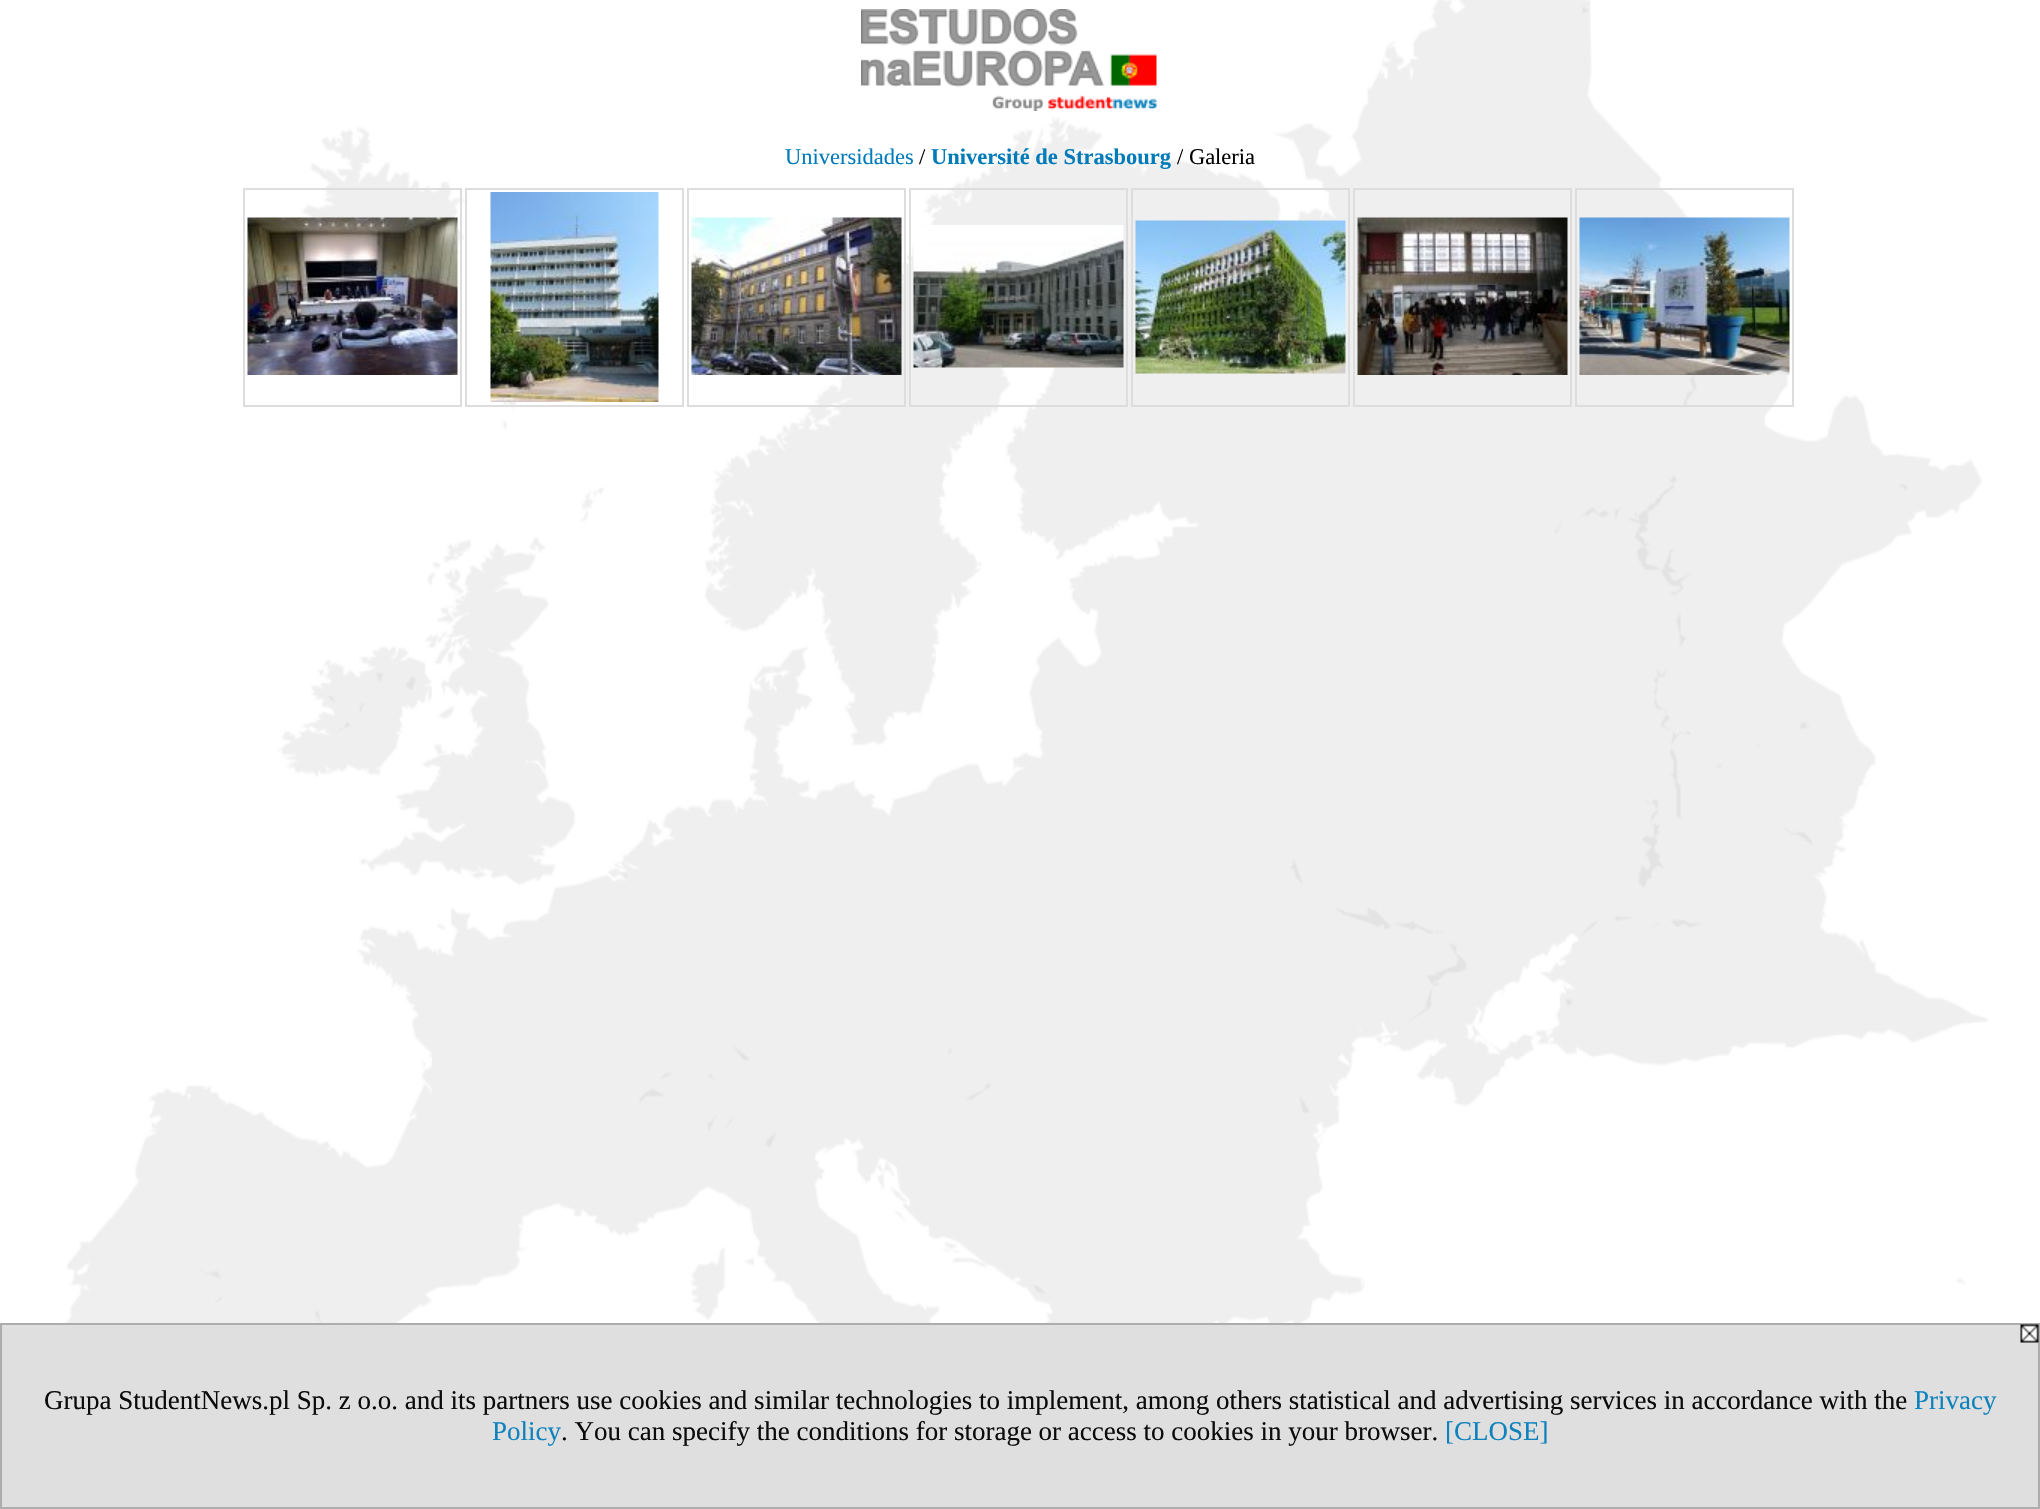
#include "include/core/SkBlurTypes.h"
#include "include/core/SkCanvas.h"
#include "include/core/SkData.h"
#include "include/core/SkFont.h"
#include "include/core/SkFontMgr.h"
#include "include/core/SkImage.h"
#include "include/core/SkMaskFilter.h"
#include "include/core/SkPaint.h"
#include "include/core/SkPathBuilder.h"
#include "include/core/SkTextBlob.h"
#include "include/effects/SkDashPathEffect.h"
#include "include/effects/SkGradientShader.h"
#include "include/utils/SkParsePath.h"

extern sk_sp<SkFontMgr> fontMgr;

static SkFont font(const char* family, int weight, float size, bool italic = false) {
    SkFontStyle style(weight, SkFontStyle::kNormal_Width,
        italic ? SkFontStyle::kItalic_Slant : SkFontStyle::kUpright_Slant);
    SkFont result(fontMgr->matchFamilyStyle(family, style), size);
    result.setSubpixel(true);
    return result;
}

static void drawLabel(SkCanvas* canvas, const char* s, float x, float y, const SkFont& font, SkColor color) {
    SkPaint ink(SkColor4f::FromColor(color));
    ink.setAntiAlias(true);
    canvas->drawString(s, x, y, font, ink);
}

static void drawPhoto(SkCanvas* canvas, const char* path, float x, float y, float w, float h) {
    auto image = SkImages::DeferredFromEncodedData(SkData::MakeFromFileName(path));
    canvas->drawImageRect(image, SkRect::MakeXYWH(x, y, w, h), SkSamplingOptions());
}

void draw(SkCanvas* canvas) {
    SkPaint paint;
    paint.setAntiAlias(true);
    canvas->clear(0xFFFFFFFF);
    drawPhoto(canvas, "assets/img1.png", 52, 0, 1937, 1507);
    drawPhoto(canvas, "assets/img2.png", 861, 9, 296, 102);
    SkFont font1 = font("Liberation Serif", 400, 22.5f);
    drawLabel(canvas, "Universidades", 785, 164, font1, 0xFF007BBA);
    drawLabel(canvas, "/", 919, 164, font1, 0xFF000000);
    SkFont font2 = font("Liberation Serif", 700, 22.5f);
    drawLabel(canvas, "Université de Strasbourg", 931, 164, font2, 0xFF007BBA);
    drawLabel(canvas, "/ Galeria", 1177, 164, font1, 0xFF000000);
    paint.setStroke(true);
    paint.setStrokeWidth(2);
    paint.setColor(0xFFDDDDDD);
    canvas->drawRect(SkRect::MakeXYWH(244, 189, 217, 217), paint);
    drawPhoto(canvas, "assets/img3.png", 247, 217, 211, 158);
    canvas->drawRect(SkRect::MakeXYWH(466, 189, 217, 217), paint);
    drawPhoto(canvas, "assets/img4.png", 490, 192, 169, 210);
    canvas->drawRect(SkRect::MakeXYWH(688, 189, 217, 217), paint);
    drawPhoto(canvas, "assets/img5.png", 691, 217, 211, 158);
    canvas->drawRect(SkRect::MakeXYWH(910, 189, 217, 217), paint);
    drawPhoto(canvas, "assets/img6.png", 913, 225, 211, 143);
    canvas->drawRect(SkRect::MakeXYWH(1132, 189, 217, 217), paint);
    drawPhoto(canvas, "assets/img7.png", 1135, 220, 211, 154);
    canvas->drawRect(SkRect::MakeXYWH(1354, 189, 217, 217), paint);
    drawPhoto(canvas, "assets/img8.png", 1357, 217, 211, 158);
    canvas->drawRect(SkRect::MakeXYWH(1576, 189, 217, 217), paint);
    drawPhoto(canvas, "assets/img9.png", 1579, 217, 211, 158);
    paint.setStroke(false);
    paint.setColor(0xF2DDDDDD);
    canvas->drawRect(SkRect::MakeXYWH(1, 1324, 2038, 184), paint);
    paint.setStroke(true);
    paint.setColor(0xFFADADAD);
    canvas->drawRect(SkRect::MakeXYWH(1, 1324, 2038, 184), paint);
    drawPhoto(canvas, "assets/img10.png", 2020, 1324, 19, 19);
    SkFont font3 = font("Liberation Serif", 400, 27);
    drawLabel(canvas, "Grupa StudentNews.pl Sp. z o.o. and its partners use cookies and similar technologies to implement, among others statistical and advertising services in accordance with the", 44, 1409, font3, 0xFF0B0B0B);
    drawLabel(canvas, "Privacy", 1914, 1409, font3, 0xFF0D82BD);
    drawLabel(canvas, "Policy", 492, 1440, font3, 0xFF0D82BD);
    drawLabel(canvas, ". You can specify the conditions for storage or access to cookies in your browser.", 561, 1440, font3, 0xFF0B0B0B);
    drawLabel(canvas, "[CLOSE]", 1445, 1440, font3, 0xFF0D82BD);
}
